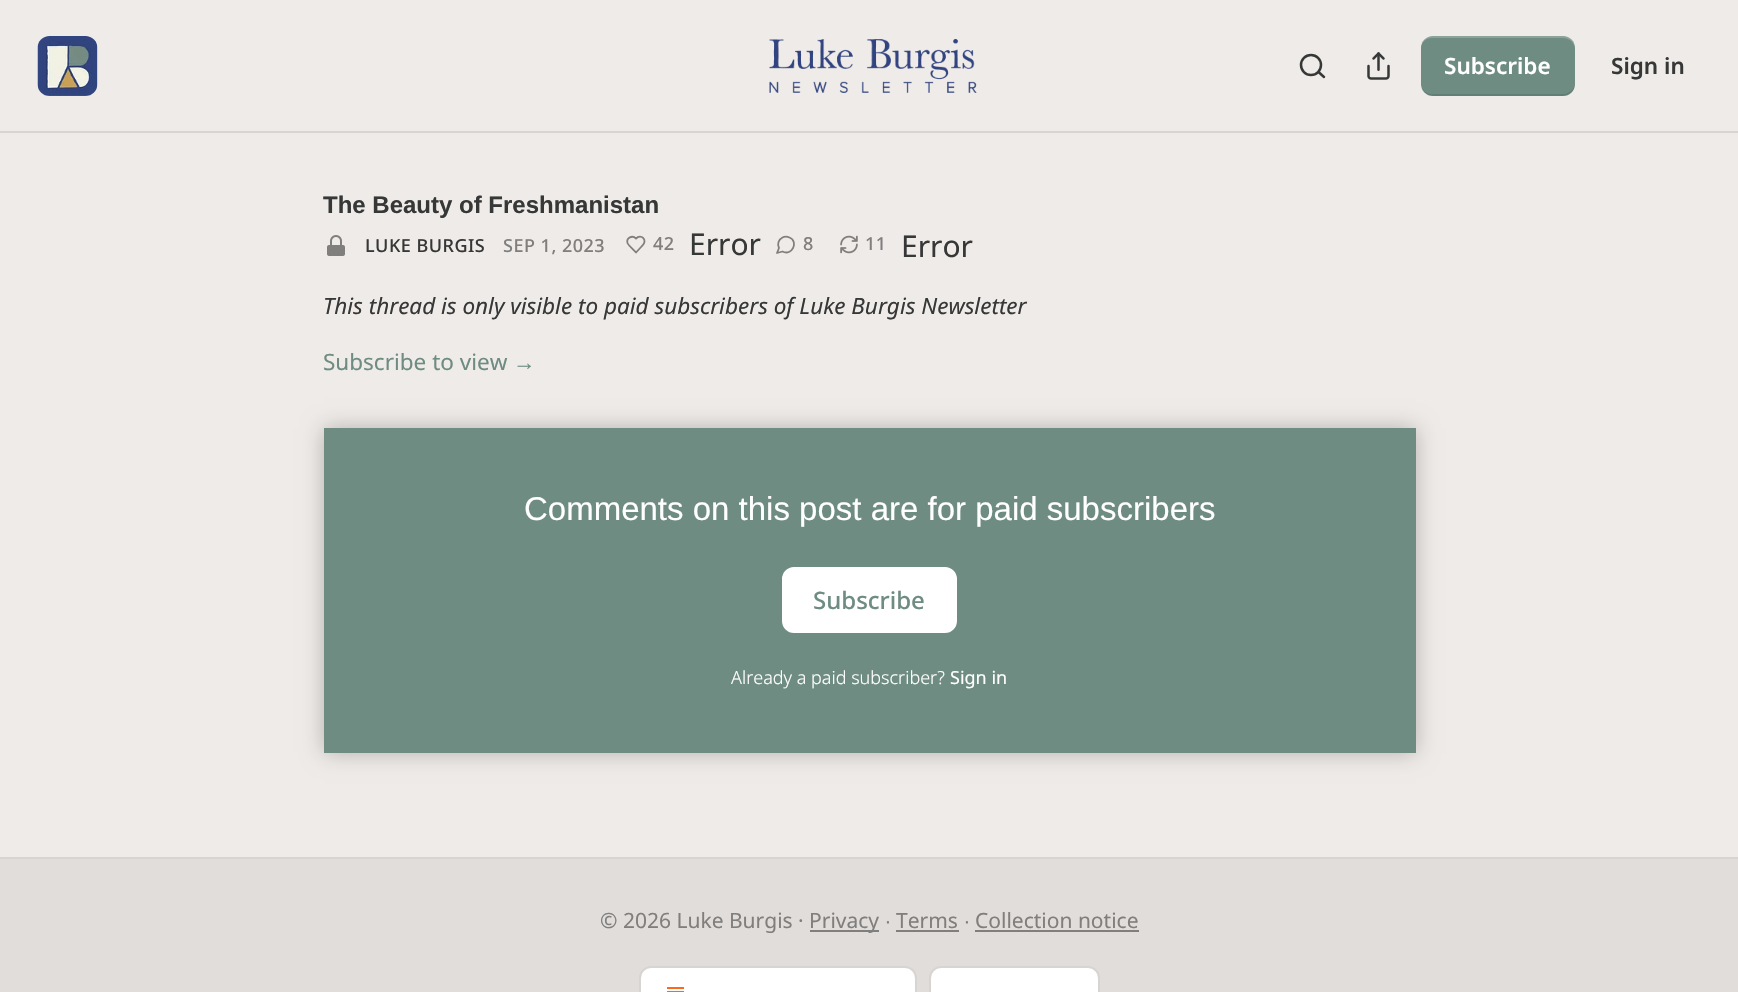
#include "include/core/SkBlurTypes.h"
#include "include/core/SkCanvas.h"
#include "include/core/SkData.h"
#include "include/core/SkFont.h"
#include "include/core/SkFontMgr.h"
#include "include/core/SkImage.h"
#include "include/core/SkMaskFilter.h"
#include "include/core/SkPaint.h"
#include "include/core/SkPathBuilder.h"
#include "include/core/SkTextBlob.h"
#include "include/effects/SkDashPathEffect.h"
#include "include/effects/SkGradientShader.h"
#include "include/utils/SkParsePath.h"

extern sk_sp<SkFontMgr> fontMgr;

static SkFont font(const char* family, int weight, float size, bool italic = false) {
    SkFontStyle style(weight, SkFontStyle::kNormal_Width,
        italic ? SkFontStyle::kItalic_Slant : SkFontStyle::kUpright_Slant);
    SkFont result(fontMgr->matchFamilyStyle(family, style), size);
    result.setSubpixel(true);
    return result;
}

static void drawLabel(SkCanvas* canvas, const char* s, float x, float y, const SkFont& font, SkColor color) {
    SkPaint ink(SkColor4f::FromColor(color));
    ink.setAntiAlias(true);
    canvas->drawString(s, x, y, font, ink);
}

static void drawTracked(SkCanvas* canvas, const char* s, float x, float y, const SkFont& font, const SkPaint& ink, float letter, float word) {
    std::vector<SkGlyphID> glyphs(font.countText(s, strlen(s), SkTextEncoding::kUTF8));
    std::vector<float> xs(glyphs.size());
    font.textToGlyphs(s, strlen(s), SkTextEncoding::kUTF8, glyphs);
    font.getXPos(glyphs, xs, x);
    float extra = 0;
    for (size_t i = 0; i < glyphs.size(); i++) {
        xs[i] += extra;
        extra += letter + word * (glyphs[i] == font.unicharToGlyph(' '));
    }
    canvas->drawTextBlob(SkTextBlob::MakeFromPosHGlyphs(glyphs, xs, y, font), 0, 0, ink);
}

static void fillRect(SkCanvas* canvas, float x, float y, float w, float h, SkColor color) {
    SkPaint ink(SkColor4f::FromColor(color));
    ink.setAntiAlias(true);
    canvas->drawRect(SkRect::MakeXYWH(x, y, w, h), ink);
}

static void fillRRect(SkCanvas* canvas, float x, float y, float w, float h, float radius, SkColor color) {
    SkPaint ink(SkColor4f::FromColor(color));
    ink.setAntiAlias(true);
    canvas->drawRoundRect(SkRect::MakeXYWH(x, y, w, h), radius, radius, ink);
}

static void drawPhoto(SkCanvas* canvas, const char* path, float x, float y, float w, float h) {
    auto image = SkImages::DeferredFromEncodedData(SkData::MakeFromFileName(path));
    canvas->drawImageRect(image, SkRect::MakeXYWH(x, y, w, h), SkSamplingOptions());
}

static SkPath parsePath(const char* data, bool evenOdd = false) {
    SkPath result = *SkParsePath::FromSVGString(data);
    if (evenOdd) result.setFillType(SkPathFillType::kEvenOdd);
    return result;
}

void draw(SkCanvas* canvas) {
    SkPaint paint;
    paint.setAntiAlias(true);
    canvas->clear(0xFFEFEBE8);
    fillRect(canvas, 0, 131, 1738, 2, 0xFFD7D4D1);
    fillRRect(canvas, 38, 36, 60, 60, 12, 0xFFFFFFFF);
    drawPhoto(canvas, "assets/img1.png", 37, 36, 61, 60);
    drawPhoto(canvas, "assets/img2.png", 769, 39, 208, 54);
    paint.setStroke(true);
    paint.setStrokeWidth(2.5f);
    paint.setColor(0xFF363737);
    canvas->drawCircle(1311, 65, 10, paint);
    paint.setStrokeCap(SkPaint::kRound_Cap);
    paint.setStrokeJoin(SkPaint::kRound_Join);
    canvas->drawPath(parsePath("M1324 77L1318.5 72"), paint);
    drawPhoto(canvas, "assets/img3.png", 1367, 52, 23, 28);
    fillRRect(canvas, 1421, 36, 154, 60, 12, 0xFF6E8C82);
    paint.setStroke(false);
    paint.setColor(0x1A000000);
    canvas->drawPath(parsePath("M1422 88C1423 93 1428 96 1433 96H1563C1570 96 1575 91 1575 84V82C1575 89 1570 94 1563 94H1432C1428 94 1424 92 1422 88Z"), paint);
    paint.setColor(0x33FFFFFF);
    canvas->drawPath(parsePath("M1432 38H1563C1570 38 1575 43 1575 50V48C1575 41 1570 36 1563 36H1433C1428 36 1423 39 1422 44C1424 40 1428 38 1432 38Z"), paint);
    SkFont font1 = font("Noto Sans", 600, 22.5f);
    drawLabel(canvas, "Subscribe", 1444, 74, font1, 0xFFFFFFFF);
    drawLabel(canvas, "Sign in", 1611, 74, font1, 0xFF363737);
    SkFont font2 = font("Liberation Sans", 700, 24);
    drawLabel(canvas, "The Beauty of Freshmanistan", 323, 213, font2, 0xFF363737);
    drawPhoto(canvas, "assets/img4.png", 327, 235, 18, 21);
    SkFont font3 = font("Noto Sans", 500, 18);
    paint.setColor(0xFF363737);
    drawTracked(canvas, "LUKE BURGIS", 365, 252, font3, paint, 0.5f, 0);
    paint.setColor(0xFF807F7E);
    drawTracked(canvas, "SEP 1, 2023", 503, 252, font3, paint, 0.5f, 0);
    paint.setStroke(true);
    paint.setStrokeWidth(1.8f);
    canvas->drawPath(parsePath("M642 246C648.5 240 641 233.5 636 238.5C632.5 235 626 237.5 627.5 243C628.5 245.5 634 250 636 252.5Z"), paint);
    paint.setStroke(false);
    drawTracked(canvas, "42", 653, 250, font3, paint, 0.5f, 0);
    SkFont font4 = font("Noto Sans", 400, 30);
    drawLabel(canvas, "Error", 689, 255, font4, 0xFF363737);
    paint.setStroke(true);
    canvas->drawPath(parsePath("M782.5 251.5C792 256.5 799 241.5 789.5 237.5C787 236.5 784.5 236.5 782.5 237.5C778.5 239.5 777 244 779 248L777 253Z"), paint);
    paint.setStroke(false);
    drawTracked(canvas, "8", 803, 250, font3, paint, 0.5f, 0);
    drawPhoto(canvas, "assets/img5.png", 840, 235, 18, 19);
    drawTracked(canvas, "11", 865, 250, font3, paint, 0.5f, 0);
    drawLabel(canvas, "Error", 901, 257, font4, 0xFF363737);
    SkFont font5 = font("Noto Sans", 400, 22.5f, true);
    drawLabel(canvas, "This thread is only visible to paid subscribers of Luke Burgis Newsletter", 323, 314, font5, 0xFF363737);
    SkFont font6 = font("Noto Sans", 400, 22.5f);
    drawLabel(canvas, "Subscribe to view", 323, 370, font6, 0xFF6E8C82);
    SkFont font7 = font("Liberation Sans", 400, 22.5f);
    drawLabel(canvas, "→", 513, 370, font7, 0xFF6E8C82);
    fillRect(canvas, 324, 428, 1092, 325, 0xFF6E8C82);
    paint.setColor(0xFFFFFFFF);
    canvas->drawRoundRect(SkRect::MakeXYWH(783, 568, 173, 64), 11, 11, paint);
    paint.setStroke(true);
    paint.setStrokeWidth(2);
    paint.setStrokeCap(SkPaint::kButt_Cap);
    paint.setStrokeJoin(SkPaint::kMiter_Join);
    canvas->drawRoundRect(SkRect::MakeXYWH(783, 568, 173, 64), 11, 11, paint);
    canvas->save();
    canvas->clipPath(parsePath("M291 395H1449V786H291ZM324 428H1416V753H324Z", true), true);
    paint.setStroke(false);
    paint.setColor(0x40000000);
    paint.setMaskFilter(SkMaskFilter::MakeBlur(kNormal_SkBlurStyle, 10.5f));
    canvas->drawRect(SkRect::MakeXYWH(324, 428, 1092, 325), paint);
    paint.setMaskFilter(nullptr);
    canvas->restore();
    SkFont font8 = font("Liberation Sans", 400, 33);
    drawLabel(canvas, "Comments on this post are for paid subscribers", 524, 520, font8, 0xFFFFFFFF);
    SkFont font9 = font("Noto Sans", 500, 24);
    drawLabel(canvas, "Subscribe", 813, 609, font9, 0xFF6E8C82);
    SkFont font10 = font("Noto Sans", 300, 18);
    drawLabel(canvas, "Already a paid subscriber?", 731, 684, font10, 0xFFFFFFFF);
    SkFont font11 = font("Noto Sans", 400, 18);
    drawLabel(canvas, "Sign in", 950, 684, font11, 0xFFFFFFFF);
    fillRect(canvas, 0, 859, 1738, 133, 0xFFE1DDDA);
    fillRect(canvas, 0, 857, 1738, 2, 0xFFD7D4D1);
    SkFont font12 = font("Noto Sans", 400, 21);
    drawLabel(canvas, "© 2026 Luke Burgis ·", 600, 928, font12, 0xFF807F7E);
    fillRect(canvas, 810, 930, 69, 2, 0xFF807F7E);
    drawLabel(canvas, "Privacy", 809, 928, font12, 0xFF807F7E);
    SkFont font13 = font("Liberation Sans", 400, 21);
    drawLabel(canvas, "∙", 885, 928, font13, 0xFF807F7E);
    drawLabel(canvas, "Terms", 896, 928, font12, 0xFF807F7E);
    fillRect(canvas, 896, 930, 63, 2, 0xFF807F7E);
    drawLabel(canvas, "∙", 964, 928, font13, 0xFF807F7E);
    drawLabel(canvas, "Collection notice", 975, 928, font12, 0xFF807F7E);
    fillRect(canvas, 975, 930, 164, 2, 0xFF807F7E);
    paint.setColor(0xFFFFFFFF);
    canvas->drawRoundRect(SkRect::MakeXYWH(640, 967, 276, 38), 11, 11, paint);
    paint.setStroke(true);
    paint.setColor(0xFFD7D4D1);
    canvas->drawRoundRect(SkRect::MakeXYWH(640, 967, 276, 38), 11, 11, paint);
    drawPhoto(canvas, "assets/img6.png", 667, 987, 17, 5);
    paint.setStroke(false);
    paint.setColor(0xFFFFFFFF);
    canvas->drawRoundRect(SkRect::MakeXYWH(930, 967, 169, 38), 11, 11, paint);
    paint.setStroke(true);
    paint.setColor(0xFFD7D4D1);
    canvas->drawRoundRect(SkRect::MakeXYWH(930, 967, 169, 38), 11, 11, paint);
}
